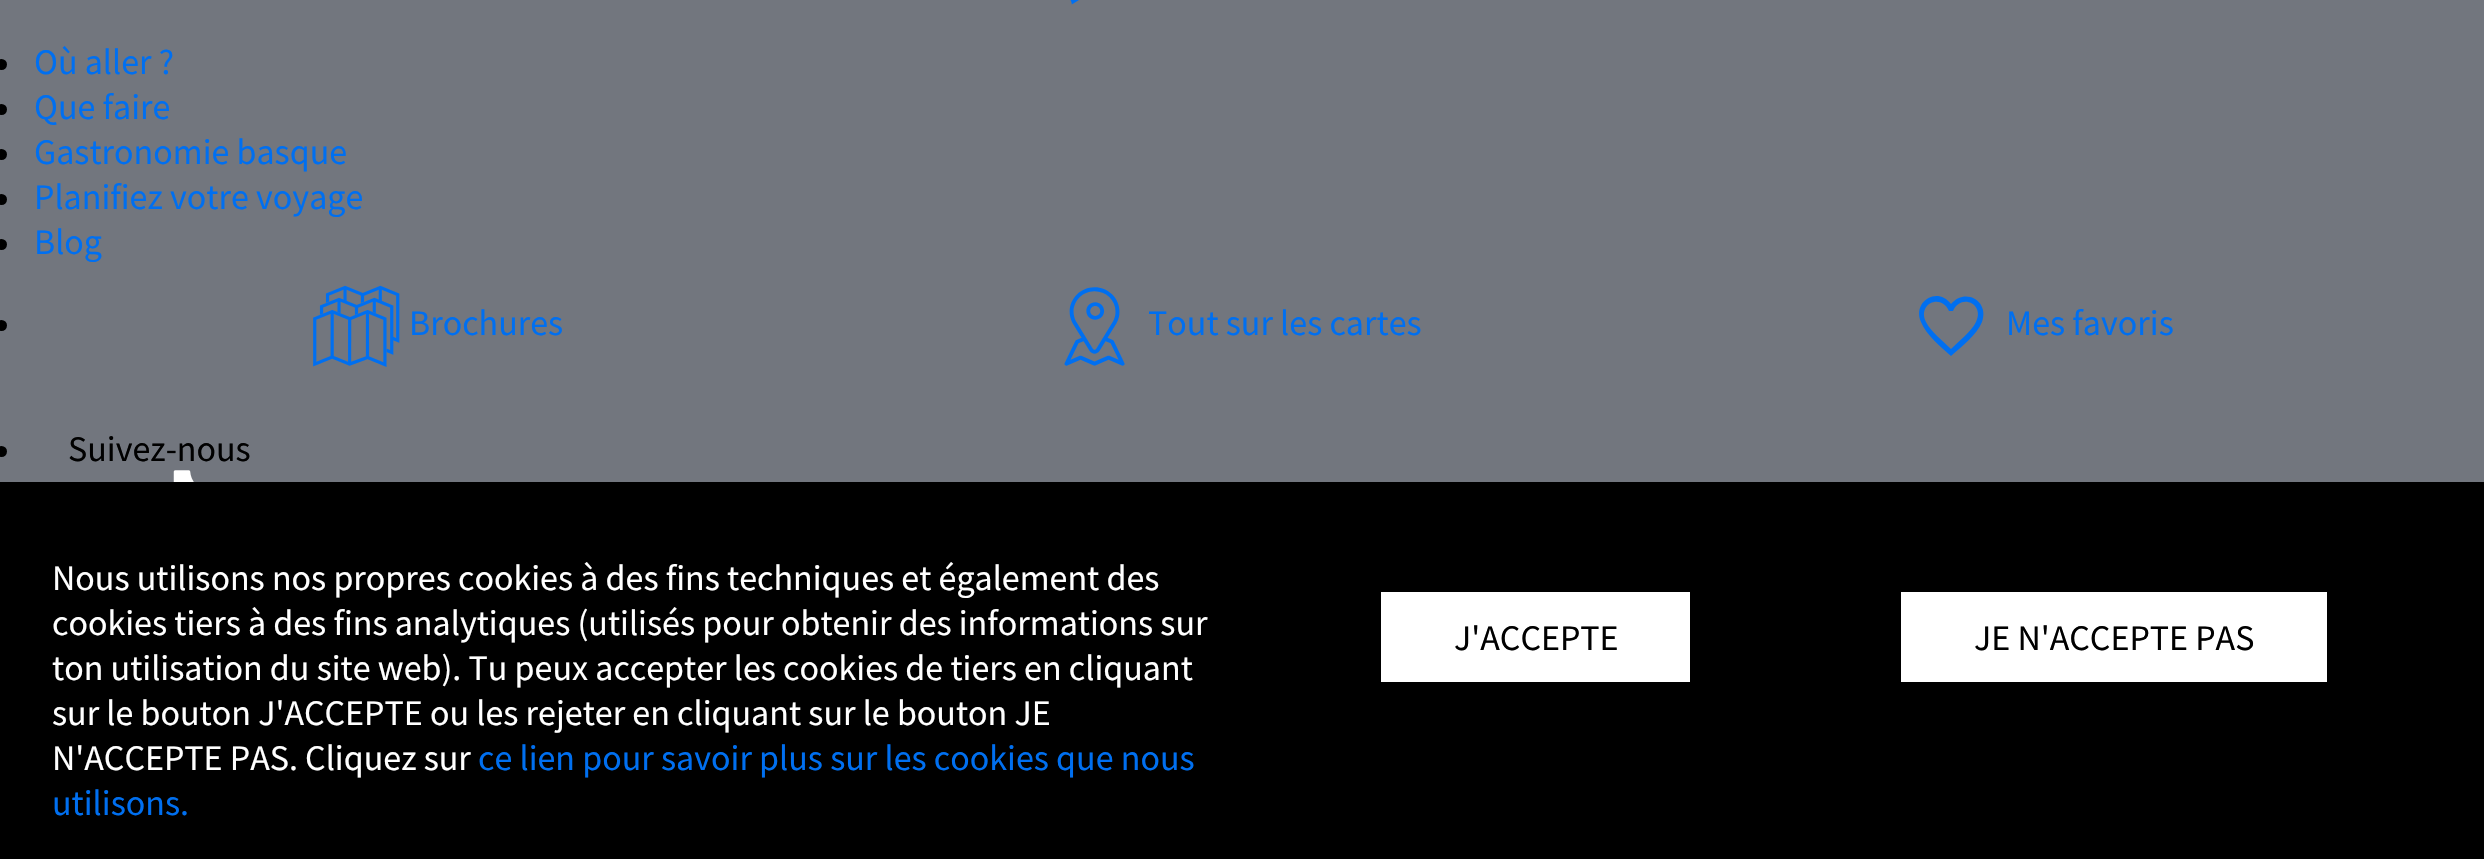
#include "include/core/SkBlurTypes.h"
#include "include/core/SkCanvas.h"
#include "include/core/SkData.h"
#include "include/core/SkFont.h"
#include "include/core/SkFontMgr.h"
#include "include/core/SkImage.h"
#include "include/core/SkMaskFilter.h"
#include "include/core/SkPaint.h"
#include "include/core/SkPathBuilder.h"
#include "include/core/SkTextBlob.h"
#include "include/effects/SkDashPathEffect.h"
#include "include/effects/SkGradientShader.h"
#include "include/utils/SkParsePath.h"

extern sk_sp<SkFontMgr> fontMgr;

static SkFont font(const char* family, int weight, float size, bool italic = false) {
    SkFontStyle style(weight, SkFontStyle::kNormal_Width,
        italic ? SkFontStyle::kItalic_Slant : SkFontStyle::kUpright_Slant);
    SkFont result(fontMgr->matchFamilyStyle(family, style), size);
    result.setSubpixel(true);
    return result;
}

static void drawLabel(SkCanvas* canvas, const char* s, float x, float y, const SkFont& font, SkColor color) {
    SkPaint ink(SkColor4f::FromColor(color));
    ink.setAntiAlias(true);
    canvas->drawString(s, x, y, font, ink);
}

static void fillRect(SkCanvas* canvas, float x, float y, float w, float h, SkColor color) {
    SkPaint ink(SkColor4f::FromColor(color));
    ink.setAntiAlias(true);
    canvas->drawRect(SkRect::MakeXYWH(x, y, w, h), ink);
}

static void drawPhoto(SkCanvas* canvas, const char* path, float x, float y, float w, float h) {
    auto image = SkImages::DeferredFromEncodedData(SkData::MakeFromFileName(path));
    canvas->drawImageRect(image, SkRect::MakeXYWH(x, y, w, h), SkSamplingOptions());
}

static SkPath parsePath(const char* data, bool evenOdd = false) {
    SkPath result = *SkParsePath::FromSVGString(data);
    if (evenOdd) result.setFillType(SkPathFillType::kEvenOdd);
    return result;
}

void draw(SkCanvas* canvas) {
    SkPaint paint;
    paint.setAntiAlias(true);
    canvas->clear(0xFF72767E);
    drawPhoto(canvas, "assets/img1.png", 1070, 0, 9, 5);
    paint.setColor(0xFF000000);
    canvas->drawCircle(1.5f, 64.5f, 5.5f, paint);
    SkFont font1 = font("Source Sans Pro", 400, 36);
    drawLabel(canvas, "Où aller ?", 34, 74, font1, 0xFF006FF0);
    canvas->drawCircle(1.5f, 109.5f, 5.5f, paint);
    drawLabel(canvas, "Que faire", 34, 119, font1, 0xFF006FF0);
    canvas->drawCircle(1.5f, 154.5f, 5.5f, paint);
    drawLabel(canvas, "Gastronomie basque", 34, 164, font1, 0xFF006FF0);
    canvas->drawCircle(1.5f, 199.5f, 5.5f, paint);
    drawLabel(canvas, "Planifiez votre voyage", 34, 209, font1, 0xFF006FF0);
    canvas->drawCircle(1.5f, 244.5f, 5.5f, paint);
    drawLabel(canvas, "Blog", 34, 254, font1, 0xFF006FF0);
    canvas->drawCircle(1.5f, 325.5f, 5.5f, paint);
    drawPhoto(canvas, "assets/img2.png", 313, 285, 87, 82);
    drawLabel(canvas, "Brochures", 409, 335, font1, 0xFF006FF0);
    drawPhoto(canvas, "assets/img3.png", 1064, 287, 61, 79);
    drawLabel(canvas, "Tout sur les cartes", 1148, 335, font1, 0xFF006FF0);
    drawLabel(canvas, "Mes favoris", 2006, 335, font1, 0xFF006FF0);
    paint.setColor(0xFF006FF0);
    canvas->drawPath(parsePath("M1951 356C1941 347 1926 335 1921 322C1912 301 1938 286 1951 304C1965 287 1990 301 1982 322C1977 335 1961 347 1951 356ZM1951 349C1959 341 1971 332 1976 322C1985 304 1961 293 1953 311H1949C1941 293 1917 304 1926 322C1931 332 1943 341 1951 349Z"), paint);
    paint.setColor(0xFF000000);
    canvas->drawCircle(1.5f, 451.5f, 5.5f, paint);
    drawLabel(canvas, "Suivez-nous", 68, 461, font1, 0xFF000000);
    drawPhoto(canvas, "assets/img4.png", 173, 470, 21, 12);
    fillRect(canvas, 0, 482, 2484, 377, 0xFF000000);
    drawLabel(canvas, "Nous utilisons nos propres cookies à des fins techniques et également des", 52, 590, font1, 0xFFFFFFFF);
    drawLabel(canvas, "cookies tiers à des fins analytiques (utilisés pour obtenir des informations sur", 52, 635, font1, 0xFFFFFFFF);
    drawLabel(canvas, "ton utilisation du site web). Tu peux accepter les cookies de tiers en cliquant", 52, 680, font1, 0xFFFFFFFF);
    drawLabel(canvas, "sur le bouton J'ACCEPTE ou les rejeter en cliquant sur le bouton JE", 52, 725, font1, 0xFFFFFFFF);
    drawLabel(canvas, "N'ACCEPTE PAS. Cliquez sur", 52, 770, font1, 0xFFFFFFFF);
    drawLabel(canvas, "ce lien pour savoir plus sur les cookies que nous", 478, 770, font1, 0xFF006FF0);
    drawLabel(canvas, "utilisons.", 52, 815, font1, 0xFF006FF0);
    fillRect(canvas, 1381, 592, 309, 90, 0xFFFFFFFF);
    drawLabel(canvas, "J'ACCEPTE", 1454, 650, font1, 0xFF000000);
    fillRect(canvas, 1901, 592, 426, 90, 0xFFFFFFFF);
    drawLabel(canvas, "JE N'ACCEPTE PAS", 1974, 650, font1, 0xFF000000);
}
